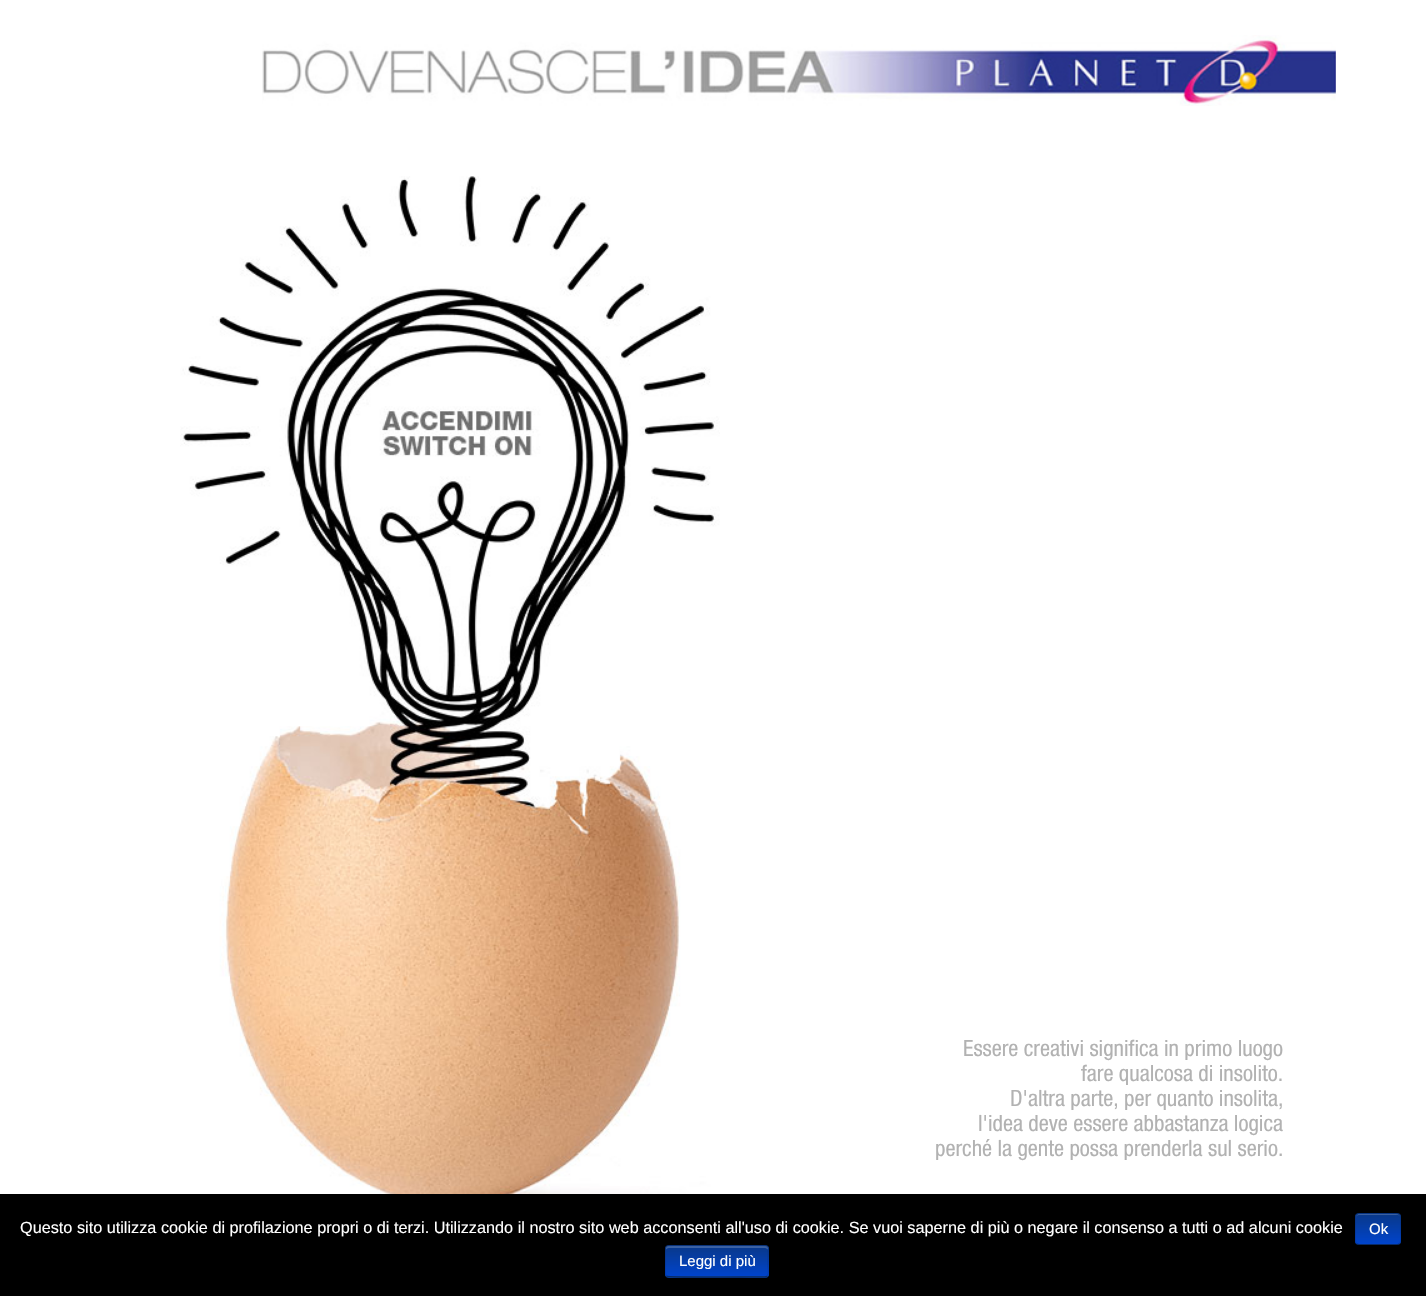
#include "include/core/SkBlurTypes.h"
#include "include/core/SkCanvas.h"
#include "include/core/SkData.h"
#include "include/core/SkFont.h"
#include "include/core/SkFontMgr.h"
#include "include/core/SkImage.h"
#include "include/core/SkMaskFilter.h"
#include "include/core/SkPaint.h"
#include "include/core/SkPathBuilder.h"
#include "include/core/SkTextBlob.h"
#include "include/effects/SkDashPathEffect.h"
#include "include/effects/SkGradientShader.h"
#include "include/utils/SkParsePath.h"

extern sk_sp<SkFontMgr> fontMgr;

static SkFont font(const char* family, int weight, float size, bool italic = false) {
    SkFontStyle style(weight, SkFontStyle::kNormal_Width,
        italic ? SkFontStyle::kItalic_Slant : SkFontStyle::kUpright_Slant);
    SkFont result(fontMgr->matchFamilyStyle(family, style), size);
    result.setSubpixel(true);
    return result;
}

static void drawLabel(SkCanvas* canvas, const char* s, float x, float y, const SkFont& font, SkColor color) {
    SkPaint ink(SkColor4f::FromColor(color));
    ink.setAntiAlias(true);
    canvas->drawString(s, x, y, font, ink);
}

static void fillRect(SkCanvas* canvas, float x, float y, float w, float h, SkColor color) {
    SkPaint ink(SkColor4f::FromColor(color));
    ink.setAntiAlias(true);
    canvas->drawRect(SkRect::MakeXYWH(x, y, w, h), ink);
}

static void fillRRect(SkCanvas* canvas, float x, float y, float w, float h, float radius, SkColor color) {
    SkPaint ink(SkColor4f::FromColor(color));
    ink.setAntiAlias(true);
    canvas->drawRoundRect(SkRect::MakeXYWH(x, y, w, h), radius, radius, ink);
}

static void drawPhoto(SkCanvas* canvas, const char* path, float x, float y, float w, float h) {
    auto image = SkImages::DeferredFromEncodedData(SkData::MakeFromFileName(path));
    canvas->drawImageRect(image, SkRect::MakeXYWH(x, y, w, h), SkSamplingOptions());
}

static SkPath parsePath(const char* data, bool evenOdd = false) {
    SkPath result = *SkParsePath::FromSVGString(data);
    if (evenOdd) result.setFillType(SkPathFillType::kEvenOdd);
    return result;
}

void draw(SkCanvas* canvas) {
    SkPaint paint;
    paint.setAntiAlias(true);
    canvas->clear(0xFFFFFFFF);
    drawPhoto(canvas, "assets/img1.png", 262, 35, 1074, 71);
    drawPhoto(canvas, "assets/img2.png", 180, 176, 540, 1018);
    SkFont font1 = font("Helvetica Neue", 400, 22.5f);
    drawLabel(canvas, "Essere creativi significa in primo luogo", 963, 1056, font1, 0xFFB2B2B2);
    drawLabel(canvas, "fare qualcosa di insolito.", 1081, 1081, font1, 0xFFB2B2B2);
    drawLabel(canvas, "D'altra parte, per quanto insolita,", 1010, 1106, font1, 0xFFB2B2B2);
    drawLabel(canvas, "l'idea deve essere abbastanza logica", 978, 1131, font1, 0xFFB2B2B2);
    drawLabel(canvas, "perché la gente possa prenderla sul serio.", 935, 1156, font1, 0xFFB2B2B2);
    fillRect(canvas, 0, 1194, 1426, 102, 0xFF000000);
    SkFont font2 = font("Liberation Sans", 400, 16.25f);
    drawLabel(canvas, "Questo sito utilizza cookie di profilazione propri o di terzi. Utilizzando il nostro sito web acconsenti all'uso di cookie. Se vuoi saperne di più o negare il consenso a tutti o ad alcuni cookie", 20, 1233, font2, 0xFFFFFFFF);
    fillRRect(canvas, 1355, 1213, 46, 32, 4, 0xFF093889);
    canvas->save();
    canvas->clipPath(parsePath("M1359 1213H1397C1399 1213 1401 1215 1401 1217V1241C1401 1243 1399 1245 1397 1245H1359C1357 1245 1355 1243 1355 1241V1217C1355 1215 1357 1213 1359 1213Z"), true);
    {
        const SkColor colors[] = {0xFF093889, 0xFF0044CC};
        const float stops[] = {0, 1};
        const SkPoint ends[] = {{1378, 1214}, {1378, 1244}};
        paint.setShader(SkGradientShader::MakeLinear(ends, colors, stops, 2, SkTileMode::kClamp));
        paint.setAlpha(255);
    }
    canvas->drawRect(SkRect::MakeXYWH(1355, 1214, 46, 30), paint);
    canvas->restore();
    paint.setShader(nullptr);
    paint.setColor(0xFF3A60A1);
    canvas->drawPath(parsePath("M1359 1215H1398C1399 1215 1400 1216 1400 1218C1400 1213 1396 1214 1391 1214H1365C1360 1214 1356 1213 1356 1218C1356 1216 1357 1215 1359 1215Z"), paint);
    paint.setStroke(true);
    paint.setStrokeWidth(1.2f);
    paint.setColor(0x40000000);
    canvas->drawPath(parsePath("M1399.5 1243.5L1397.5 1244.5H1359L1356.5 1243.5"), paint);
    paint.setColor(0x1A000000);
    canvas->drawPath(parsePath("M1356.5 1243.5C1354.5 1241.5 1355.5 1231.5 1355.5 1229C1355.5 1214 1352 1213 1365 1213H1391C1404 1213 1400.5 1214 1400.5 1229C1400.5 1231.5 1402 1241.5 1399.5 1243.5"), paint);
    SkFont font3 = font("Liberation Sans", 400, 15);
    drawLabel(canvas, "Ok", 1369, 1234, font3, 0xFFFFFFFF);
    fillRRect(canvas, 665, 1245, 104, 33, 4, 0xFF093889);
    canvas->save();
    canvas->clipPath(parsePath("M669 1245H765C767 1245 769 1247 769 1249V1274C769 1276 767 1278 765 1278H669C667 1278 665 1276 665 1274V1249C665 1247 667 1245 669 1245Z"), true);
    paint.setStroke(false);
    {
        const SkColor colors[] = {0xFF093889, 0xFF0044CC};
        const float stops[] = {0, 1};
        const SkPoint ends[] = {{717, 1246}, {717, 1276}};
        paint.setShader(SkGradientShader::MakeLinear(ends, colors, stops, 2, SkTileMode::kClamp));
        paint.setAlpha(255);
    }
    canvas->drawRect(SkRect::MakeXYWH(665, 1246, 104, 30), paint);
    canvas->restore();
    paint.setShader(nullptr);
    paint.setColor(0x33FFFFFF);
    canvas->drawPath(parsePath("M669 1248H765C766 1248 768 1249 768 1250V1248C768 1247 767 1246 766 1246H668C667 1246 666 1247 666 1248V1250C666 1249 667 1248 669 1248Z"), paint);
    paint.setStroke(true);
    paint.setColor(0x40000000);
    canvas->drawPath(parsePath("M767 1276L765 1277H749C740 1277 669 1278 667 1276H666.5"), paint);
    paint.setColor(0x1A000000);
    canvas->drawPath(parsePath("M666.5 1276C664.5 1274 665.5 1268 665.5 1265.5C665.5 1242 661 1245.5 685 1245.5H749C772.5 1245.5 768 1242 768 1265.5C768 1268 769.5 1274 767 1276"), paint);
    drawLabel(canvas, "Leggi di più", 679, 1266, font3, 0xFFFFFFFF);
}
